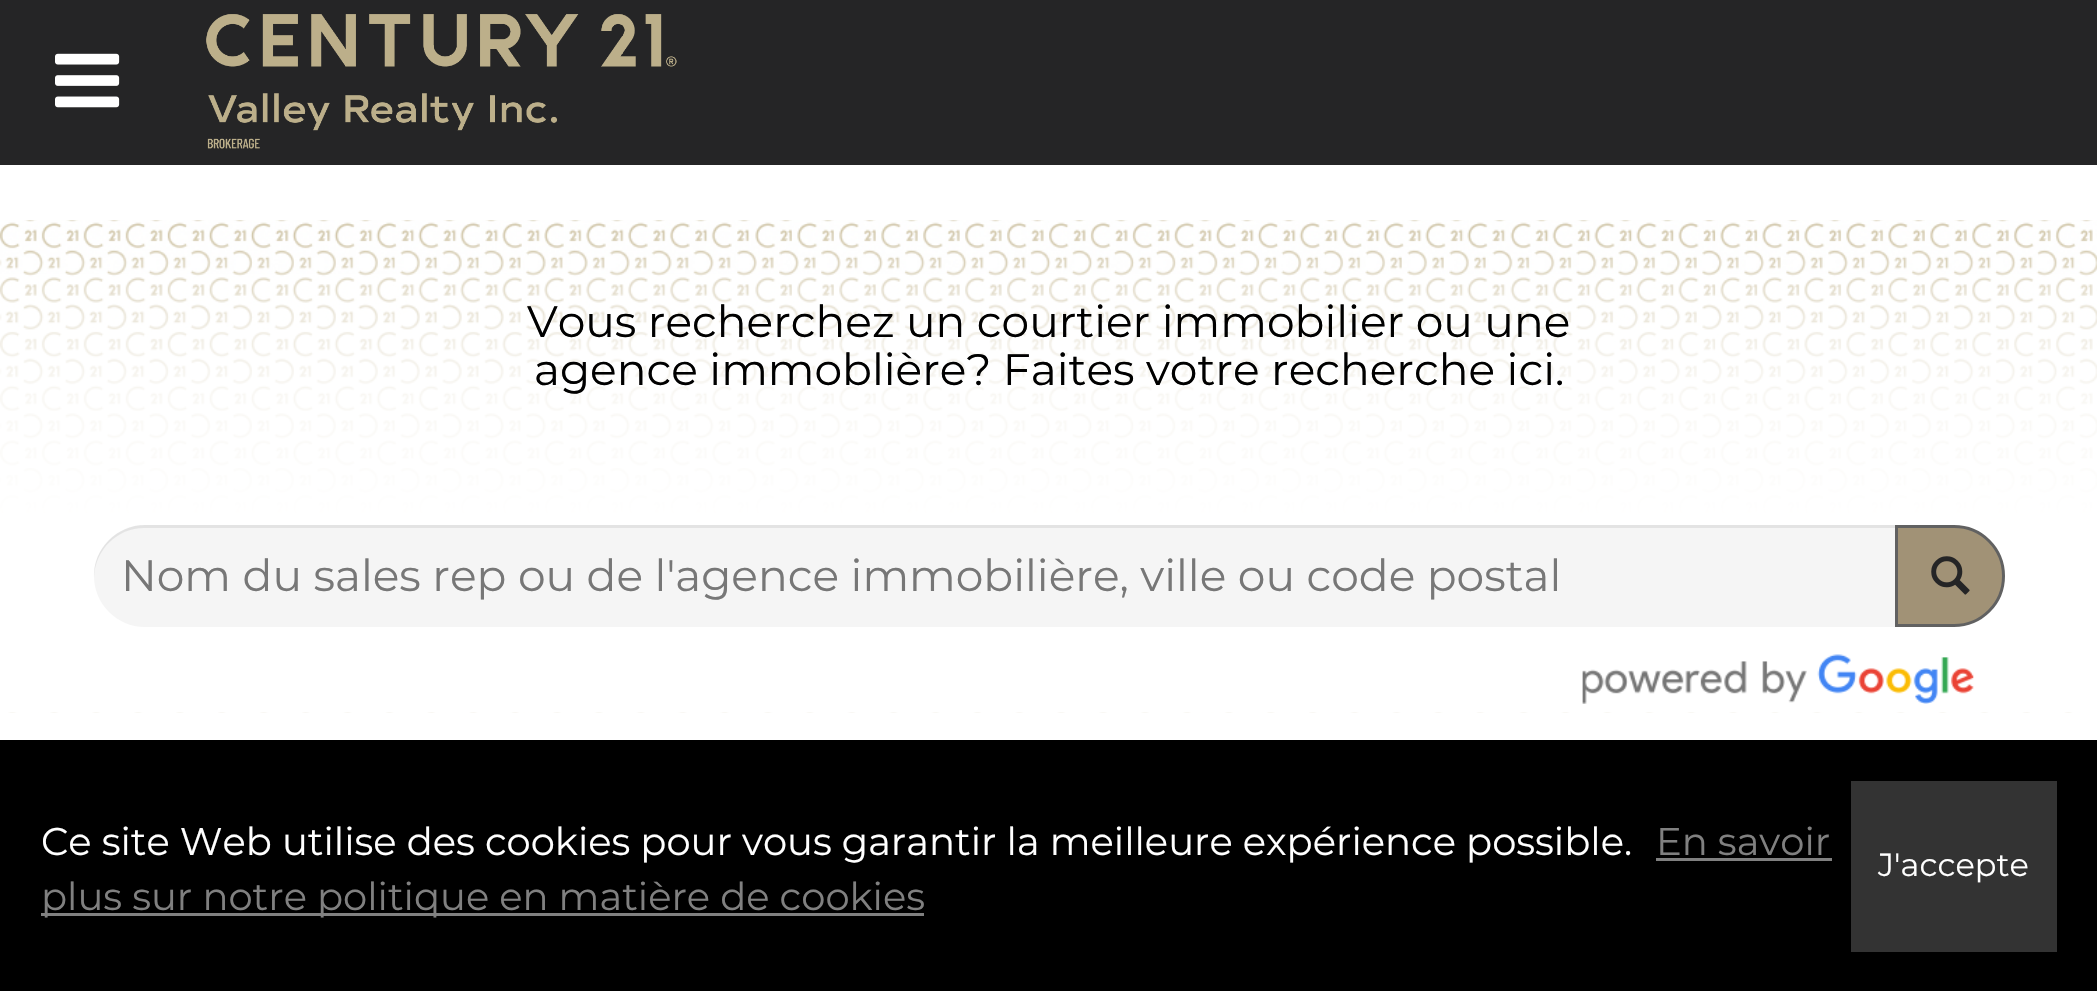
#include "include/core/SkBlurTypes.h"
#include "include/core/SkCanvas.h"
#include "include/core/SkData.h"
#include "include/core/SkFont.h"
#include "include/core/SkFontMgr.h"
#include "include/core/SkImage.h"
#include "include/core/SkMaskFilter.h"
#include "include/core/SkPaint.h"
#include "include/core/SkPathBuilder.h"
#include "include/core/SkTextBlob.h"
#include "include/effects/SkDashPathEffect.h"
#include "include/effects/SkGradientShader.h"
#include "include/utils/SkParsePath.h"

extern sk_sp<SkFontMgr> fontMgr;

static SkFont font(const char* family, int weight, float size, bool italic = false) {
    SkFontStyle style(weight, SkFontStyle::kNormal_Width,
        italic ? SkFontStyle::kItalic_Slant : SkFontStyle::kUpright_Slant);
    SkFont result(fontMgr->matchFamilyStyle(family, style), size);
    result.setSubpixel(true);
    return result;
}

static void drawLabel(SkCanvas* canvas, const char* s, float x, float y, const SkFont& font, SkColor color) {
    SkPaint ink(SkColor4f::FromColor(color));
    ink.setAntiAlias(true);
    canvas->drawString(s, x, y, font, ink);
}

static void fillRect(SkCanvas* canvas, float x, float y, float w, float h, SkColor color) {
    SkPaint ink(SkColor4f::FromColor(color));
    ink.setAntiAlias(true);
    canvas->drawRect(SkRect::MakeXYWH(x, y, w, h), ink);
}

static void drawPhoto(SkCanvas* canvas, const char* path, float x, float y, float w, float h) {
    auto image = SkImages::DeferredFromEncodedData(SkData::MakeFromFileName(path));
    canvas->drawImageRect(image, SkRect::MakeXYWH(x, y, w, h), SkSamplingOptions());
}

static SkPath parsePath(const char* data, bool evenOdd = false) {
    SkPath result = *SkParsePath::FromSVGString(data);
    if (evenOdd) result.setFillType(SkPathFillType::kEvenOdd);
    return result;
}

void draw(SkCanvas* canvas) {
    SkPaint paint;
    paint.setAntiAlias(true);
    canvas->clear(0xFFFFFFFF);
    fillRect(canvas, 0, 0, 2097, 165, 0xFF252526);
    drawPhoto(canvas, "assets/img1.png", 55, 53, 65, 55);
    drawPhoto(canvas, "assets/img2.png", 206, 14, 471, 135);
    drawPhoto(canvas, "assets/img3.png", 0, 220, 2097, 493);
    SkFont font1 = font("Montserrat", 100, 44);
    drawLabel(canvas, "Vous recherchez un courtier immobilier ou une", 527, 337, font1, 0xFF000000);
    drawLabel(canvas, "agence immoblière? Faites votre recherche ici.", 534, 385, font1, 0xFF000000);
    paint.setColor(0xFFF5F5F5);
    canvas->drawPath(parsePath("M145 525H1898V627H145C117 627 94 604 94 576C94 548 117 525 145 525Z"), paint);
    paint.setColor(0x12000000);
    canvas->drawPath(parsePath("M144 528H1898V525H145C117 525 93 549 94 577C95 550 117 528 144 528Z"), paint);
    drawLabel(canvas, "Nom du sales rep ou de l'agence immobilière, ville ou code postal", 121, 591, font1, 0xFF777777);
    paint.setColor(0xFFA19276);
    canvas->drawPath(parsePath("M1896.5 526.5H1954C1981.5 526.5 2003.5 548.5 2003.5 576C2003.5 603.5 1981.5 625.5 1954 625.5H1896.5Z"), paint);
    paint.setStroke(true);
    paint.setStrokeWidth(3);
    paint.setColor(0xFF616161);
    canvas->drawPath(parsePath("M1896.5 526.5H1954C1981.5 526.5 2003.5 548.5 2003.5 576C2003.5 603.5 1981.5 625.5 1954 625.5H1896.5Z"), paint);
    drawPhoto(canvas, "assets/img4.png", 1931, 556, 39, 39);
    drawPhoto(canvas, "assets/img5.png", 1582, 654, 392, 50);
    fillRect(canvas, 0, 740, 2097, 251, 0xFF000000);
    SkFont font2 = font("Montserrat", 100, 38.5f);
    drawLabel(canvas, "Ce site Web utilise des cookies pour vous garantir la meilleure expérience possible.", 41, 855, font2, 0xFFFFFFFF);
    drawLabel(canvas, "En savoir", 1656, 855, font2, 0xFF808080);
    fillRect(canvas, 1656, 858, 176, 3, 0xFF808080);
    fillRect(canvas, 41, 913, 883, 3, 0xFF808080);
    drawLabel(canvas, "plus sur notre politique en matière de cookies", 41, 910, font2, 0xFF808080);
    fillRect(canvas, 1851, 781, 206, 171, 0xFF333333);
    SkFont font3 = font("Montserrat", 100, 32);
    drawLabel(canvas, "J'accepte", 1878, 876, font3, 0xFFFFFFFF);
}
